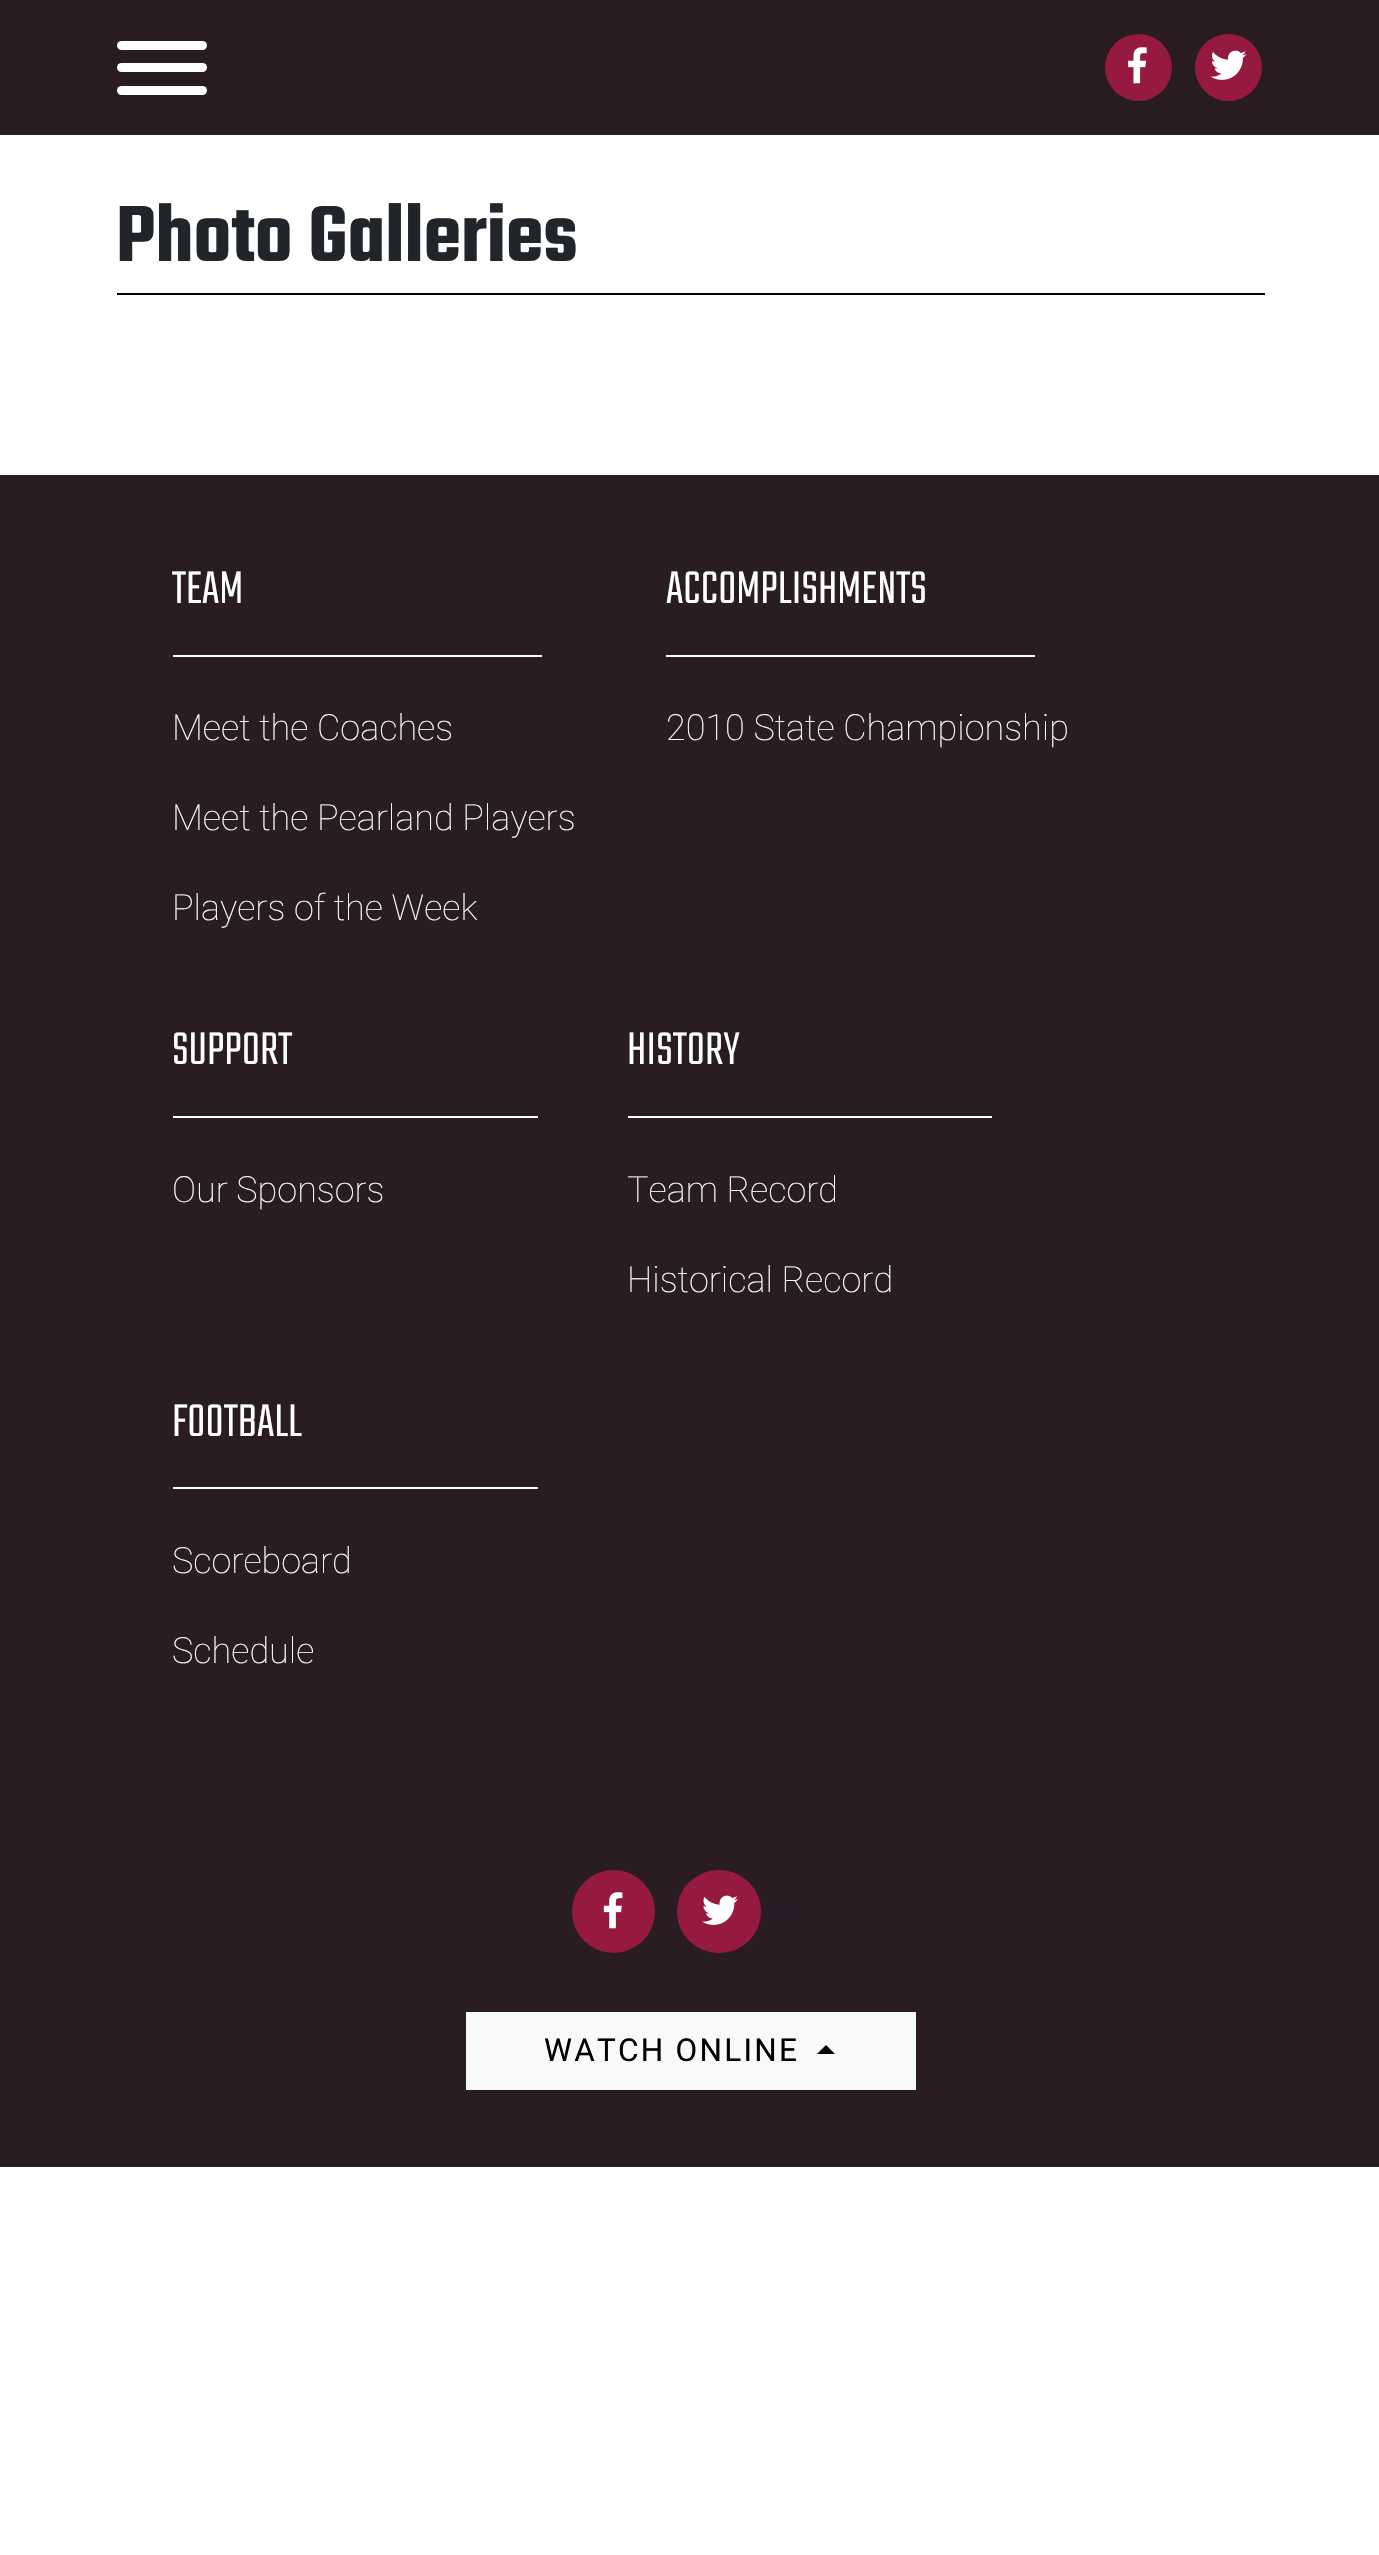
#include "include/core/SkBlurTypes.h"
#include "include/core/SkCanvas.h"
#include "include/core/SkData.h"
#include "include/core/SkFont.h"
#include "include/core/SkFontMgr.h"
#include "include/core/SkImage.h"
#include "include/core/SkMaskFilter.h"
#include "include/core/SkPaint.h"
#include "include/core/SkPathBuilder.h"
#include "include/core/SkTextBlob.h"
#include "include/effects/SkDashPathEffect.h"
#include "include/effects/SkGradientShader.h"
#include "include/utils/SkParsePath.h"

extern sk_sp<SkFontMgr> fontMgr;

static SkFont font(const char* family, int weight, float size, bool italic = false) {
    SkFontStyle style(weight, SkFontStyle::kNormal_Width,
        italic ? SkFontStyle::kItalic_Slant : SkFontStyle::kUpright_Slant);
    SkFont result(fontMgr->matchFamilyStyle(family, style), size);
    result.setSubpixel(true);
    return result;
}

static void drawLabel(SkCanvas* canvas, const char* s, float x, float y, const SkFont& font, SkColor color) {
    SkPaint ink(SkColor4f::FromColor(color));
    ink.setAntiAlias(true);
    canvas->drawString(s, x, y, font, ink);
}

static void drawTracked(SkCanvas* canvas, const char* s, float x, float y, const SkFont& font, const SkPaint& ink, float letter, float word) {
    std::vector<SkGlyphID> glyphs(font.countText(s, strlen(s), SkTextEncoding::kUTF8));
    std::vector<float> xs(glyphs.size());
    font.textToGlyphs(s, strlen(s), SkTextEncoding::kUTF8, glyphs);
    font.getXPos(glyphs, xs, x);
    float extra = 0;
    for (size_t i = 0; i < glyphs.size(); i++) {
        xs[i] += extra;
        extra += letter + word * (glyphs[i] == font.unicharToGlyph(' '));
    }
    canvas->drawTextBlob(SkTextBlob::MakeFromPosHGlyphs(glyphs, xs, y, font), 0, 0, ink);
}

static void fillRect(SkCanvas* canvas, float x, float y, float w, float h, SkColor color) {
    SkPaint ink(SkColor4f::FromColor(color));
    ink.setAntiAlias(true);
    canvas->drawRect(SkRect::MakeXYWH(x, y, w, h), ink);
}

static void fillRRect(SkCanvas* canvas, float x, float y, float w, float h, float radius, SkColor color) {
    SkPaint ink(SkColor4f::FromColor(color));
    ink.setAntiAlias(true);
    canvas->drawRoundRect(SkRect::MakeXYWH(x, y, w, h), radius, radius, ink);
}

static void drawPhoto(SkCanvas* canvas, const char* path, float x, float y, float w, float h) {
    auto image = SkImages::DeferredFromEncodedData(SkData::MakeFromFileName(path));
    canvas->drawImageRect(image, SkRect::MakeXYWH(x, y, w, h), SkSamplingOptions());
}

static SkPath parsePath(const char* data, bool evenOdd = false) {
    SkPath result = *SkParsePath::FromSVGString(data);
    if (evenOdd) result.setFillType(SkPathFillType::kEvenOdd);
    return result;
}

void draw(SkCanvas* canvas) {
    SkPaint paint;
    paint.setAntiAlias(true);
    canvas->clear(0xFFFFFFFF);
    fillRect(canvas, 0, 0, 1379, 135, 0xFF281C22);
    fillRRect(canvas, 117, 86, 90, 9, 4.5f, 0xFFFFFFFF);
    fillRRect(canvas, 117, 41, 90, 9, 4.5f, 0xFFFFFFFF);
    fillRRect(canvas, 117, 63, 90, 9, 4.5f, 0xFFFFFFFF);
    paint.setColor(0xFF961A3F);
    canvas->drawCircle(1138.5f, 67.5f, 33.5f, paint);
    drawPhoto(canvas, "assets/img1.png", 1128, 47, 19, 37);
    canvas->drawCircle(1228.5f, 67.5f, 33.5f, paint);
    drawPhoto(canvas, "assets/img2.png", 1210, 50, 37, 30);
    fillRect(canvas, 117, 293, 1148, 2, 0xFF000000);
    SkFont font1 = font("Teko", 600, 86.5f);
    drawLabel(canvas, "Photo Galleries", 116, 261, font1, 0xFF212529);
    fillRect(canvas, 0, 475, 1379, 1692, 0xFF291D23);
    fillRect(canvas, 173, 655, 369, 2, 0xFFFFFFFF);
    SkFont font2 = font("Teko", 300, 50.5f);
    drawLabel(canvas, "TEAM", 172, 603, font2, 0xFFFFFFFF);
    SkFont font3 = font("Roboto", 100, 36);
    drawLabel(canvas, "Meet the Coaches", 172, 740, font3, 0xFFFFFFFF);
    drawLabel(canvas, "Meet the Pearland Players", 172, 830, font3, 0xFFFFFFFF);
    drawLabel(canvas, "Players of the Week", 172, 920, font3, 0xFFFFFFFF);
    fillRect(canvas, 666, 655, 369, 2, 0xFFFFFFFF);
    drawLabel(canvas, "ACCOMPLISHMENTS", 666, 603, font2, 0xFFFFFFFF);
    drawLabel(canvas, "2010 State Championship", 666, 740, font3, 0xFFFFFFFF);
    fillRect(canvas, 173, 1116, 365, 2, 0xFFFFFFFF);
    drawLabel(canvas, "SUPPORT", 172, 1064, font2, 0xFFFFFFFF);
    drawLabel(canvas, "Our Sponsors", 172, 1202, font3, 0xFFFFFFFF);
    fillRect(canvas, 628, 1116, 364, 2, 0xFFFFFFFF);
    drawLabel(canvas, "HISTORY", 627, 1064, font2, 0xFFFFFFFF);
    drawLabel(canvas, "Team Record", 627, 1202, font3, 0xFFFFFFFF);
    drawLabel(canvas, "Historical Record", 627, 1292, font3, 0xFFFFFFFF);
    fillRect(canvas, 173, 1487, 365, 2, 0xFFFFFFFF);
    drawLabel(canvas, "FOOTBALL", 172, 1436, font2, 0xFFFFFFFF);
    drawLabel(canvas, "Scoreboard", 172, 1573, font3, 0xFFFFFFFF);
    drawLabel(canvas, "Schedule", 172, 1663, font3, 0xFFFFFFFF);
    canvas->drawCircle(613.5f, 1911.5f, 41.5f, paint);
    drawPhoto(canvas, "assets/img3.png", 603, 1892, 20, 37);
    fillRRect(canvas, 677, 1870, 84, 83, 41.5f, 0xFF961A3F);
    drawPhoto(canvas, "assets/img4.png", 702, 1895, 36, 30);
    fillRect(canvas, 783, 1910, 3, 3, 0xFF15223F);
    fillRect(canvas, 466, 2012, 450, 78, 0xFFF8F9FA);
    SkFont font4 = font("Roboto", 400, 31.5f);
    paint.setColor(0xFF000000);
    drawTracked(canvas, "WATCH ONLINE", 544, 2061, font4, paint, 2.25f, 0);
    canvas->drawPath(parsePath("M835 2054H817L826 2045Z"), paint);
}
